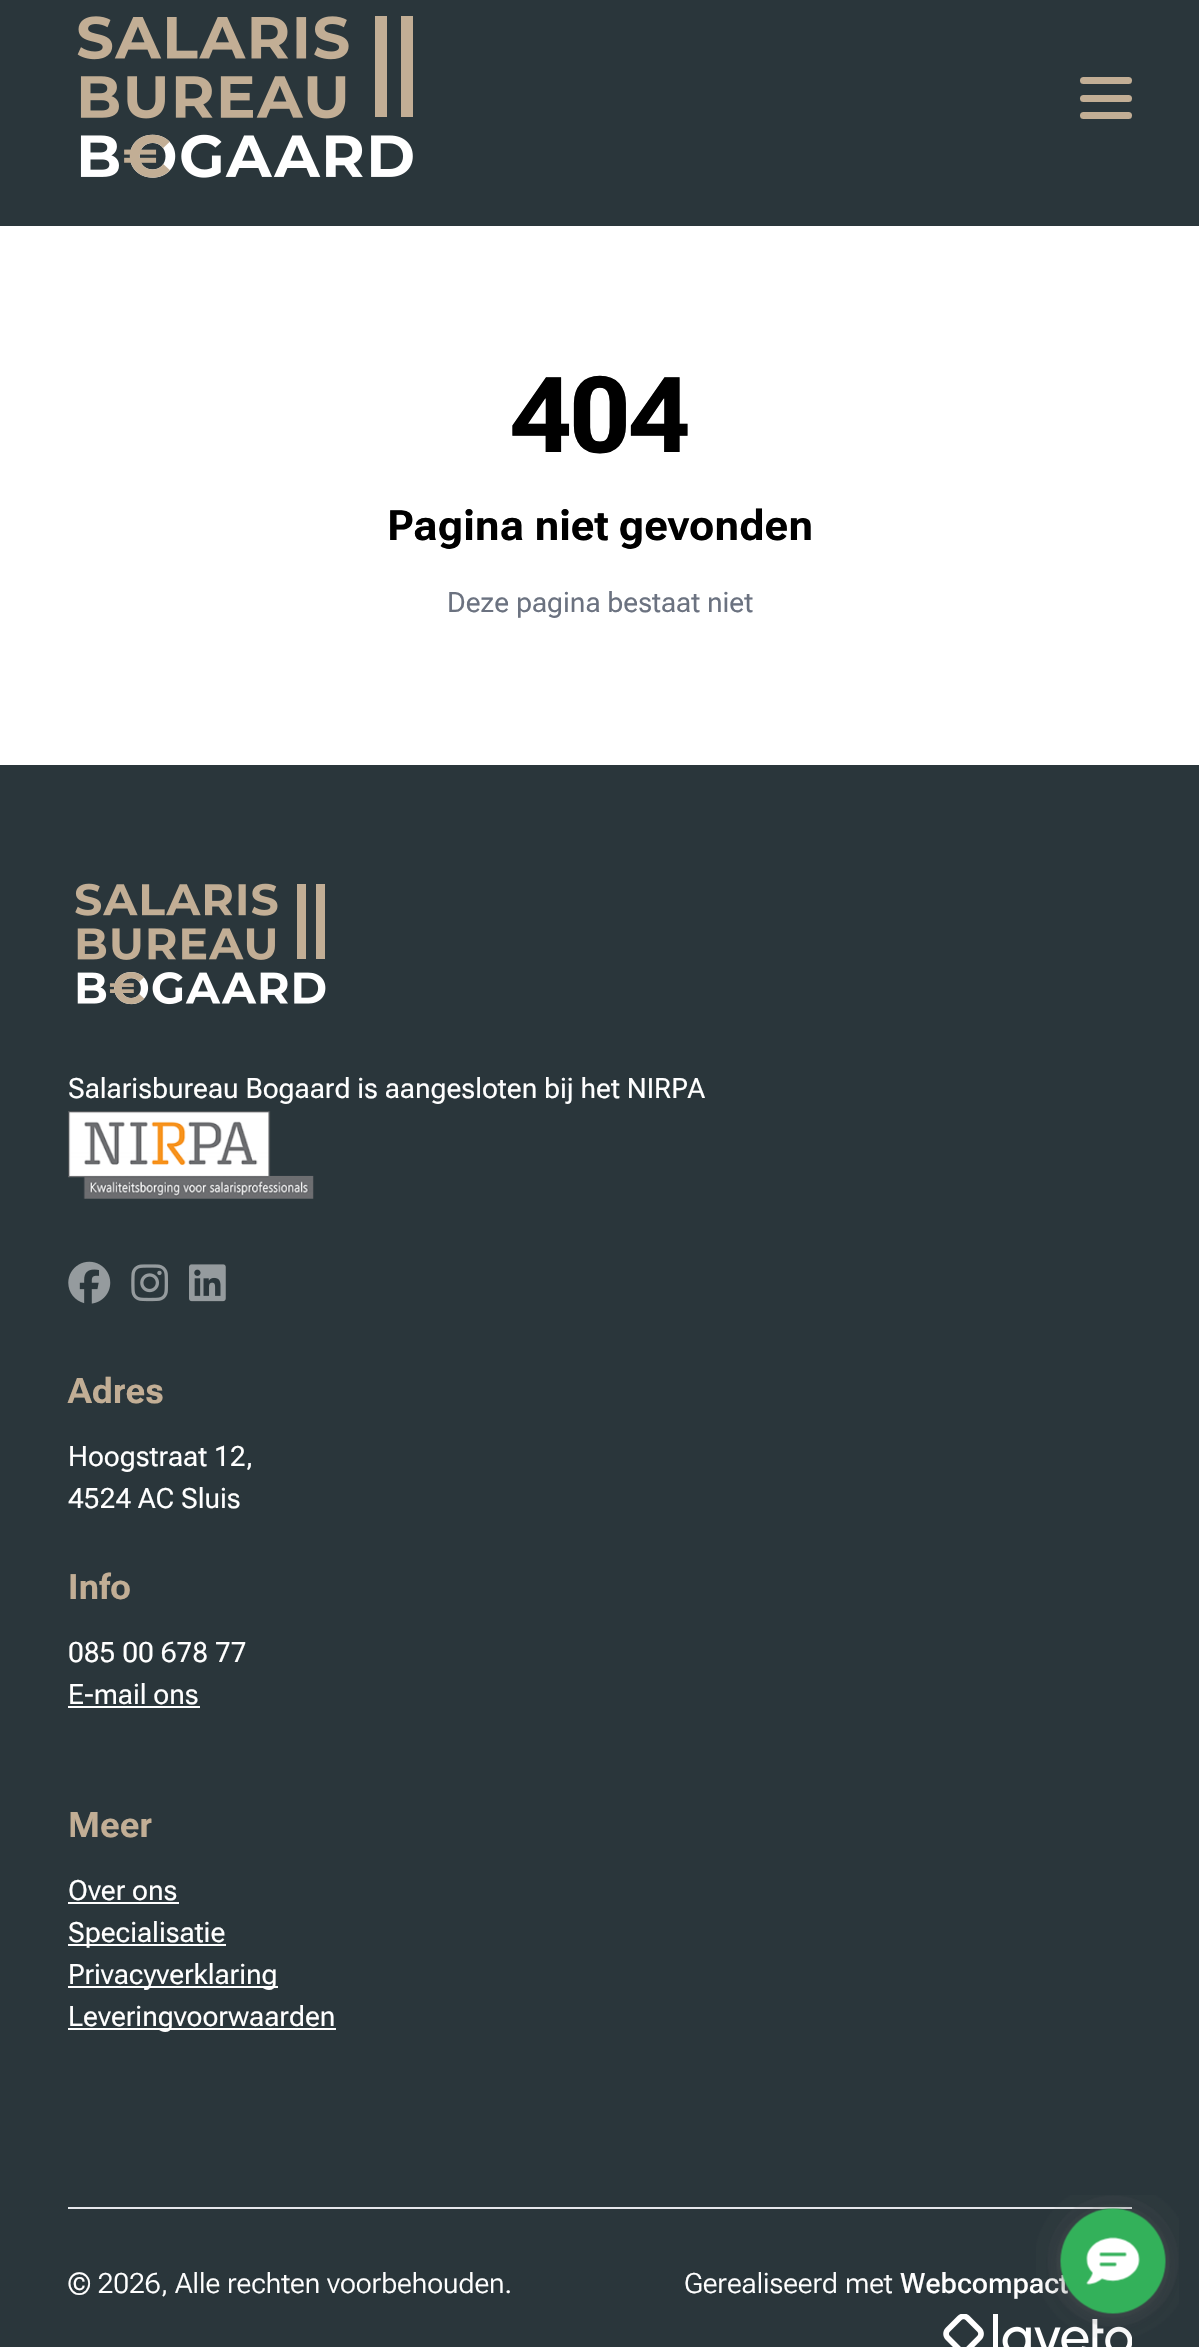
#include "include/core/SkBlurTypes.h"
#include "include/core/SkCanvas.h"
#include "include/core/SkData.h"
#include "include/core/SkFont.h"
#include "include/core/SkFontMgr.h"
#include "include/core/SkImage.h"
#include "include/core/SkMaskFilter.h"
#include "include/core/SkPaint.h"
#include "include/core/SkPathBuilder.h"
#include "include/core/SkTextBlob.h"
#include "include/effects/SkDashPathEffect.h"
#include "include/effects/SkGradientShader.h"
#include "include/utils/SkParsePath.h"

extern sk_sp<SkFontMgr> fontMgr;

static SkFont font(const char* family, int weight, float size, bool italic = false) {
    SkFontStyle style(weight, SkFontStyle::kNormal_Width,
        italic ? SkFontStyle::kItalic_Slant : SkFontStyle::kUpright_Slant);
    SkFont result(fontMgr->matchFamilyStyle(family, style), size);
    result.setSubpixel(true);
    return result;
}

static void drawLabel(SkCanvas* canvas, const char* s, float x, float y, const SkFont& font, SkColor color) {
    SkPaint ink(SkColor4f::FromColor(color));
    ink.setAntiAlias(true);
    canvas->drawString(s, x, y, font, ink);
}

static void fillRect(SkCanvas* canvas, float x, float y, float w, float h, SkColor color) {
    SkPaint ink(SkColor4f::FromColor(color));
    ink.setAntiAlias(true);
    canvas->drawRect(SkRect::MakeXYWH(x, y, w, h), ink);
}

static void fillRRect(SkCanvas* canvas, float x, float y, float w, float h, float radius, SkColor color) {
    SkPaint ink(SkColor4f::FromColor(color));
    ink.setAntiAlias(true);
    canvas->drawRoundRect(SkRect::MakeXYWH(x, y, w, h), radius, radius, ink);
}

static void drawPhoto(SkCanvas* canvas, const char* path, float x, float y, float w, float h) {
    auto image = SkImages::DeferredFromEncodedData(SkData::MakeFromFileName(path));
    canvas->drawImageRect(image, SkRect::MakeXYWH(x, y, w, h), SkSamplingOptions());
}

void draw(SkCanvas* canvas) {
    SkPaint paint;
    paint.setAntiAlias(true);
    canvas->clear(0xFFFFFFFF);
    fillRect(canvas, 0, 0, 1199, 226, 0xFF2A363B);
    drawPhoto(canvas, "assets/img1.png", 77, 16, 336, 162);
    fillRRect(canvas, 1080, 77, 52, 7, 3.5f, 0xFFC2AE95);
    fillRRect(canvas, 1080, 95, 52, 7, 3.5f, 0xFFC2AE95);
    fillRRect(canvas, 1080, 112, 52, 7, 3.5f, 0xFFC2AE95);
    SkFont font1 = font("Roboto Flex", 700, 105);
    drawLabel(canvas, "404", 511, 452, font1, 0xFF000000);
    SkFont font2 = font("Roboto Flex", 700, 42);
    drawLabel(canvas, "Pagina niet gevonden", 387, 540, font2, 0xFF000000);
    SkFont font3 = font("Roboto Flex", 400, 28);
    drawLabel(canvas, "Deze pagina bestaat niet", 447, 612, font3, 0xFF6B7280);
    fillRect(canvas, 0, 765, 1199, 1582, 0xFF2A363B);
    drawPhoto(canvas, "assets/img2.png", 75, 883, 251, 122);
    drawLabel(canvas, "Salarisbureau Bogaard is aangesloten bij het NIRPA", 68, 1098, font3, 0xFFFFFFFF);
    drawPhoto(canvas, "assets/img3.png", 68, 1111, 246, 88);
    drawPhoto(canvas, "assets/img4.png", 68, 1261, 43, 43);
    drawPhoto(canvas, "assets/img5.png", 131, 1264, 37, 38);
    drawPhoto(canvas, "assets/img6.png", 189, 1264, 37, 38);
    SkFont font4 = font("Roboto Flex", 700, 35);
    drawLabel(canvas, "Adres", 68, 1403, font4, 0xFFC2AE95);
    drawLabel(canvas, "Hoogstraat 12,", 68, 1466, font3, 0xFFFFFFFF);
    drawLabel(canvas, "4524 AC Sluis", 68, 1508, font3, 0xFFFFFFFF);
    drawLabel(canvas, "Info", 68, 1599, font4, 0xFFC2AE95);
    drawLabel(canvas, "085 00 678 77", 68, 1662, font3, 0xFFFFFFFF);
    drawLabel(canvas, "E-mail ons", 68, 1704, font3, 0xFFFFFFFF);
    fillRect(canvas, 68, 1706, 132, 2, 0xFFFFFFFF);
    drawLabel(canvas, "Meer", 68, 1837, font4, 0xFFC2AE95);
    drawLabel(canvas, "Over ons", 68, 1900, font3, 0xFFFFFFFF);
    fillRect(canvas, 68, 1902, 111, 2, 0xFFFFFFFF);
    fillRect(canvas, 68, 1944, 158, 2, 0xFFFFFFFF);
    drawLabel(canvas, "Specialisatie", 68, 1942, font3, 0xFFFFFFFF);
    fillRect(canvas, 68, 1986, 210, 2, 0xFFFFFFFF);
    drawLabel(canvas, "Privacyverklaring", 68, 1984, font3, 0xFFFFFFFF);
    fillRect(canvas, 68, 2028, 268, 2, 0xFFFFFFFF);
    drawLabel(canvas, "Leveringvoorwaarden", 68, 2026, font3, 0xFFFFFFFF);
    fillRect(canvas, 68, 2207, 1064, 2, 0xFFE5E7EB);
    SkFont font5 = font("Roboto Flex", 300, 28);
    drawLabel(canvas, "© 2026, Alle rechten voorbehouden.", 68, 2293, font5, 0xFFFFFFFF);
    drawLabel(canvas, "Gerealiseerd met", 684, 2293, font5, 0xFFFFFFFF);
    SkFont font6 = font("Roboto Flex", 500, 28);
    drawLabel(canvas, "Webcompact", 900, 2293, font6, 0xFFFFFFFF);
    drawPhoto(canvas, "assets/img7.png", 943, 2314, 189, 33);
    drawPhoto(canvas, "assets/img8.png", 1036, 2195, 143, 145);
}
